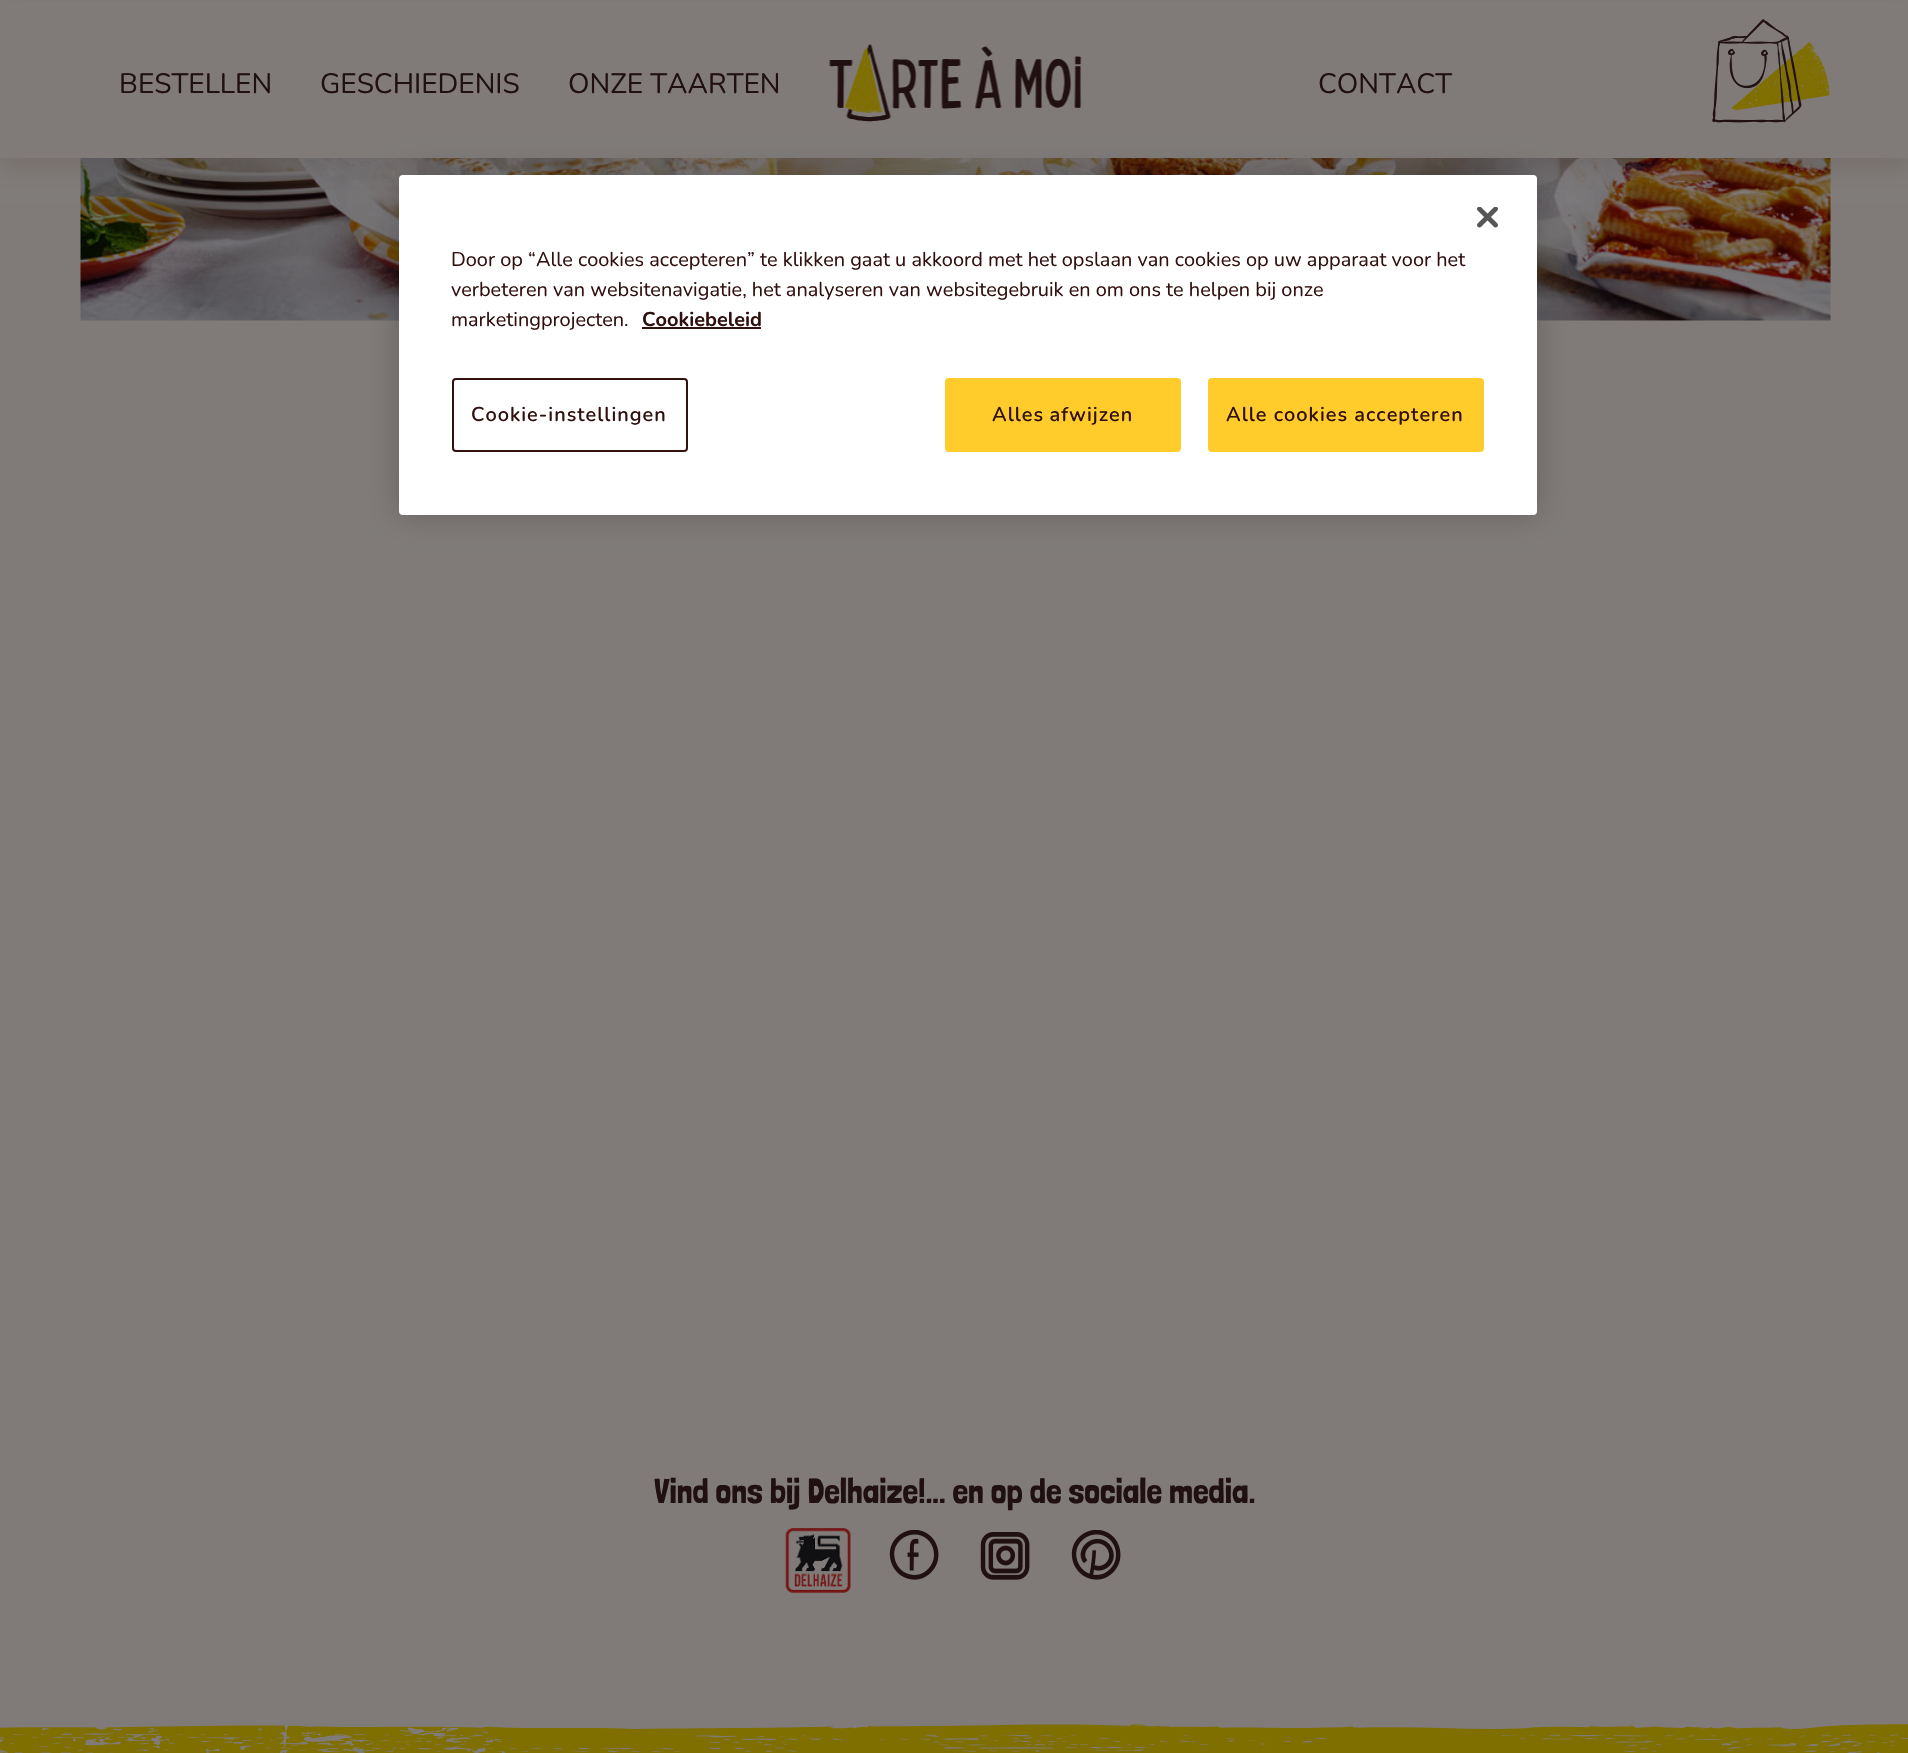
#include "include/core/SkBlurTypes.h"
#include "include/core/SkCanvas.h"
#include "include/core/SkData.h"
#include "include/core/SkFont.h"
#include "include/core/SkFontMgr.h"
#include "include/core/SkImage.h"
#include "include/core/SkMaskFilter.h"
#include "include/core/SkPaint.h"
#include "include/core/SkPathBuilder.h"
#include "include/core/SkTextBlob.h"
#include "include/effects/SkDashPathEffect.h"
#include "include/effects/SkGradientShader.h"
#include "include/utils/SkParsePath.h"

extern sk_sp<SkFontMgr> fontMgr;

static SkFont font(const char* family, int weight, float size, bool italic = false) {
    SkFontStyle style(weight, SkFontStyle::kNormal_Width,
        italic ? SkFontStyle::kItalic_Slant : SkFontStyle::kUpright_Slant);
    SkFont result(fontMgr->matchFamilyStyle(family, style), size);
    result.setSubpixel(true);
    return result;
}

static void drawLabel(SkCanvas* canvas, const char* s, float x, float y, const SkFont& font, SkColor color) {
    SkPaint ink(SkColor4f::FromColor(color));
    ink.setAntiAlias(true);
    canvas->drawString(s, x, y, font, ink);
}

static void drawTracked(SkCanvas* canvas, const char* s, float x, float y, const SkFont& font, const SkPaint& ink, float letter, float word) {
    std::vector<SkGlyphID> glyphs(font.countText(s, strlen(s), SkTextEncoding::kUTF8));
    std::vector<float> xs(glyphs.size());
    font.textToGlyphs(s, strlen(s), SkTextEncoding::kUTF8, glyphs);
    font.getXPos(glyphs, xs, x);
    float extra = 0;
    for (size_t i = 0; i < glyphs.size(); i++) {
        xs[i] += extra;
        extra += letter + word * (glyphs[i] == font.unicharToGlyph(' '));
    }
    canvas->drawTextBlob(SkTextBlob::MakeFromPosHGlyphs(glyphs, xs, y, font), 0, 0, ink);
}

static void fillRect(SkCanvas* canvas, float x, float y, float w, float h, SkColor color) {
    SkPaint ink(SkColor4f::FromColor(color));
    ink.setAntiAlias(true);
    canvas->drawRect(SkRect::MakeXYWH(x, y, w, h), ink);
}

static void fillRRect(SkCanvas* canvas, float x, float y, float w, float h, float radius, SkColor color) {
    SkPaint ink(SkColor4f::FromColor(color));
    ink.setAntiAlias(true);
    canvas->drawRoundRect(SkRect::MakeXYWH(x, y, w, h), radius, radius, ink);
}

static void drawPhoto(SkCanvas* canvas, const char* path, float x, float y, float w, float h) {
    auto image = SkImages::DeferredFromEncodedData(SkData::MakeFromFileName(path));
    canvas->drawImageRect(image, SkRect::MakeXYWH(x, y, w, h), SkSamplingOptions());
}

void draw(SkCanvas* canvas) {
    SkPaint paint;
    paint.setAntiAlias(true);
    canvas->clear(0xFF807B78);
    drawPhoto(canvas, "assets/img3.png", 80, 158, 1751, 163);
    paint.setColor(0x1A190908);
    paint.setMaskFilter(SkMaskFilter::MakeBlur(kNormal_SkBlurStyle, 12));
    canvas->drawRect(SkRect::MakeXYWH(0, 11, 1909, 157), paint);
    paint.setMaskFilter(nullptr);
    fillRect(canvas, 0, 2, 1908, 156, 0xFF807B78);
    SkFont font1 = font("Nunito", 400, 28);
    drawLabel(canvas, "BESTELLEN", 119, 93, font1, 0xFF201011);
    drawLabel(canvas, "GESCHIEDENIS", 320, 93, font1, 0xFF201011);
    drawLabel(canvas, "ONZE TAARTEN", 568, 93, font1, 0xFF201011);
    drawPhoto(canvas, "assets/img1.png", 829, 44, 253, 78);
    drawLabel(canvas, "CONTACT", 1318, 93, font1, 0xFF201011);
    drawPhoto(canvas, "assets/img2.png", 1712, 19, 118, 104);
    paint.setColor(0x33000000);
    paint.setMaskFilter(SkMaskFilter::MakeBlur(kNormal_SkBlurStyle, 16));
    canvas->drawRoundRect(SkRect::MakeXYWH(399, 175, 1138, 340), 4, 4, paint);
    paint.setMaskFilter(nullptr);
    fillRRect(canvas, 399, 175, 1138, 340, 4, 0xFFFFFFFF);
    drawPhoto(canvas, "assets/img4.png", 1477, 207, 21, 21);
    SkFont font2 = font("Nunito", 400, 19.92f);
    drawLabel(canvas, "Door op “Alle cookies accepteren” te klikken gaat u akkoord met het opslaan van cookies op uw apparaat voor het", 451, 266, font2, 0xFF311110);
    drawLabel(canvas, "verbeteren van websitenavigatie, het analyseren van websitegebruik en om ons te helpen bij onze", 451, 296, font2, 0xFF311110);
    drawLabel(canvas, "marketingprojecten.", 451, 326, font2, 0xFF311110);
    SkFont font3 = font("Nunito", 700, 19.92f);
    drawLabel(canvas, "Cookiebeleid", 642, 326, font3, 0xFF311110);
    fillRect(canvas, 642, 327, 119, 2, 0xFF311110);
    paint.setStroke(true);
    paint.setStrokeWidth(2);
    paint.setColor(0xFF311110);
    canvas->drawRoundRect(SkRect::MakeXYWH(453, 379, 234, 72), 3, 3, paint);
    SkFont font4 = font("Nunito", 600, 19.92f);
    paint.setStroke(false);
    drawTracked(canvas, "Cookie-instellingen", 471, 421, font4, paint, 1, 0);
    paint.setColor(0xFFFFCC2B);
    canvas->drawRoundRect(SkRect::MakeXYWH(946, 379, 234, 72), 3, 3, paint);
    paint.setStroke(true);
    canvas->drawRoundRect(SkRect::MakeXYWH(946, 379, 234, 72), 3, 3, paint);
    paint.setStroke(false);
    paint.setColor(0xFF311110);
    drawTracked(canvas, "Alles afwijzen", 992, 421, font4, paint, 1, -1);
    paint.setColor(0xFFFFCC2B);
    canvas->drawRoundRect(SkRect::MakeXYWH(1209, 379, 274, 72), 3, 3, paint);
    paint.setStroke(true);
    canvas->drawRoundRect(SkRect::MakeXYWH(1209, 379, 274, 72), 3, 3, paint);
    paint.setStroke(false);
    paint.setColor(0xFF311110);
    drawTracked(canvas, "Alle cookies accepteren", 1226, 421, font4, paint, 1, 0);
    SkFont font5 = font("Londrina Solid", 400, 35);
    drawLabel(canvas, "Vind ons bij Delhaize!... en op de sociale media.", 654, 1503, font5, 0xFF201011);
    drawPhoto(canvas, "assets/img5.png", 785, 1528, 66, 65);
    drawPhoto(canvas, "assets/img6.png", 889, 1530, 50, 50);
    drawPhoto(canvas, "assets/img7.png", 980, 1532, 50, 48);
    drawPhoto(canvas, "assets/img8.png", 1071, 1530, 50, 50);
    drawPhoto(canvas, "assets/img9.png", 0, 1724, 1908, 29);
}
